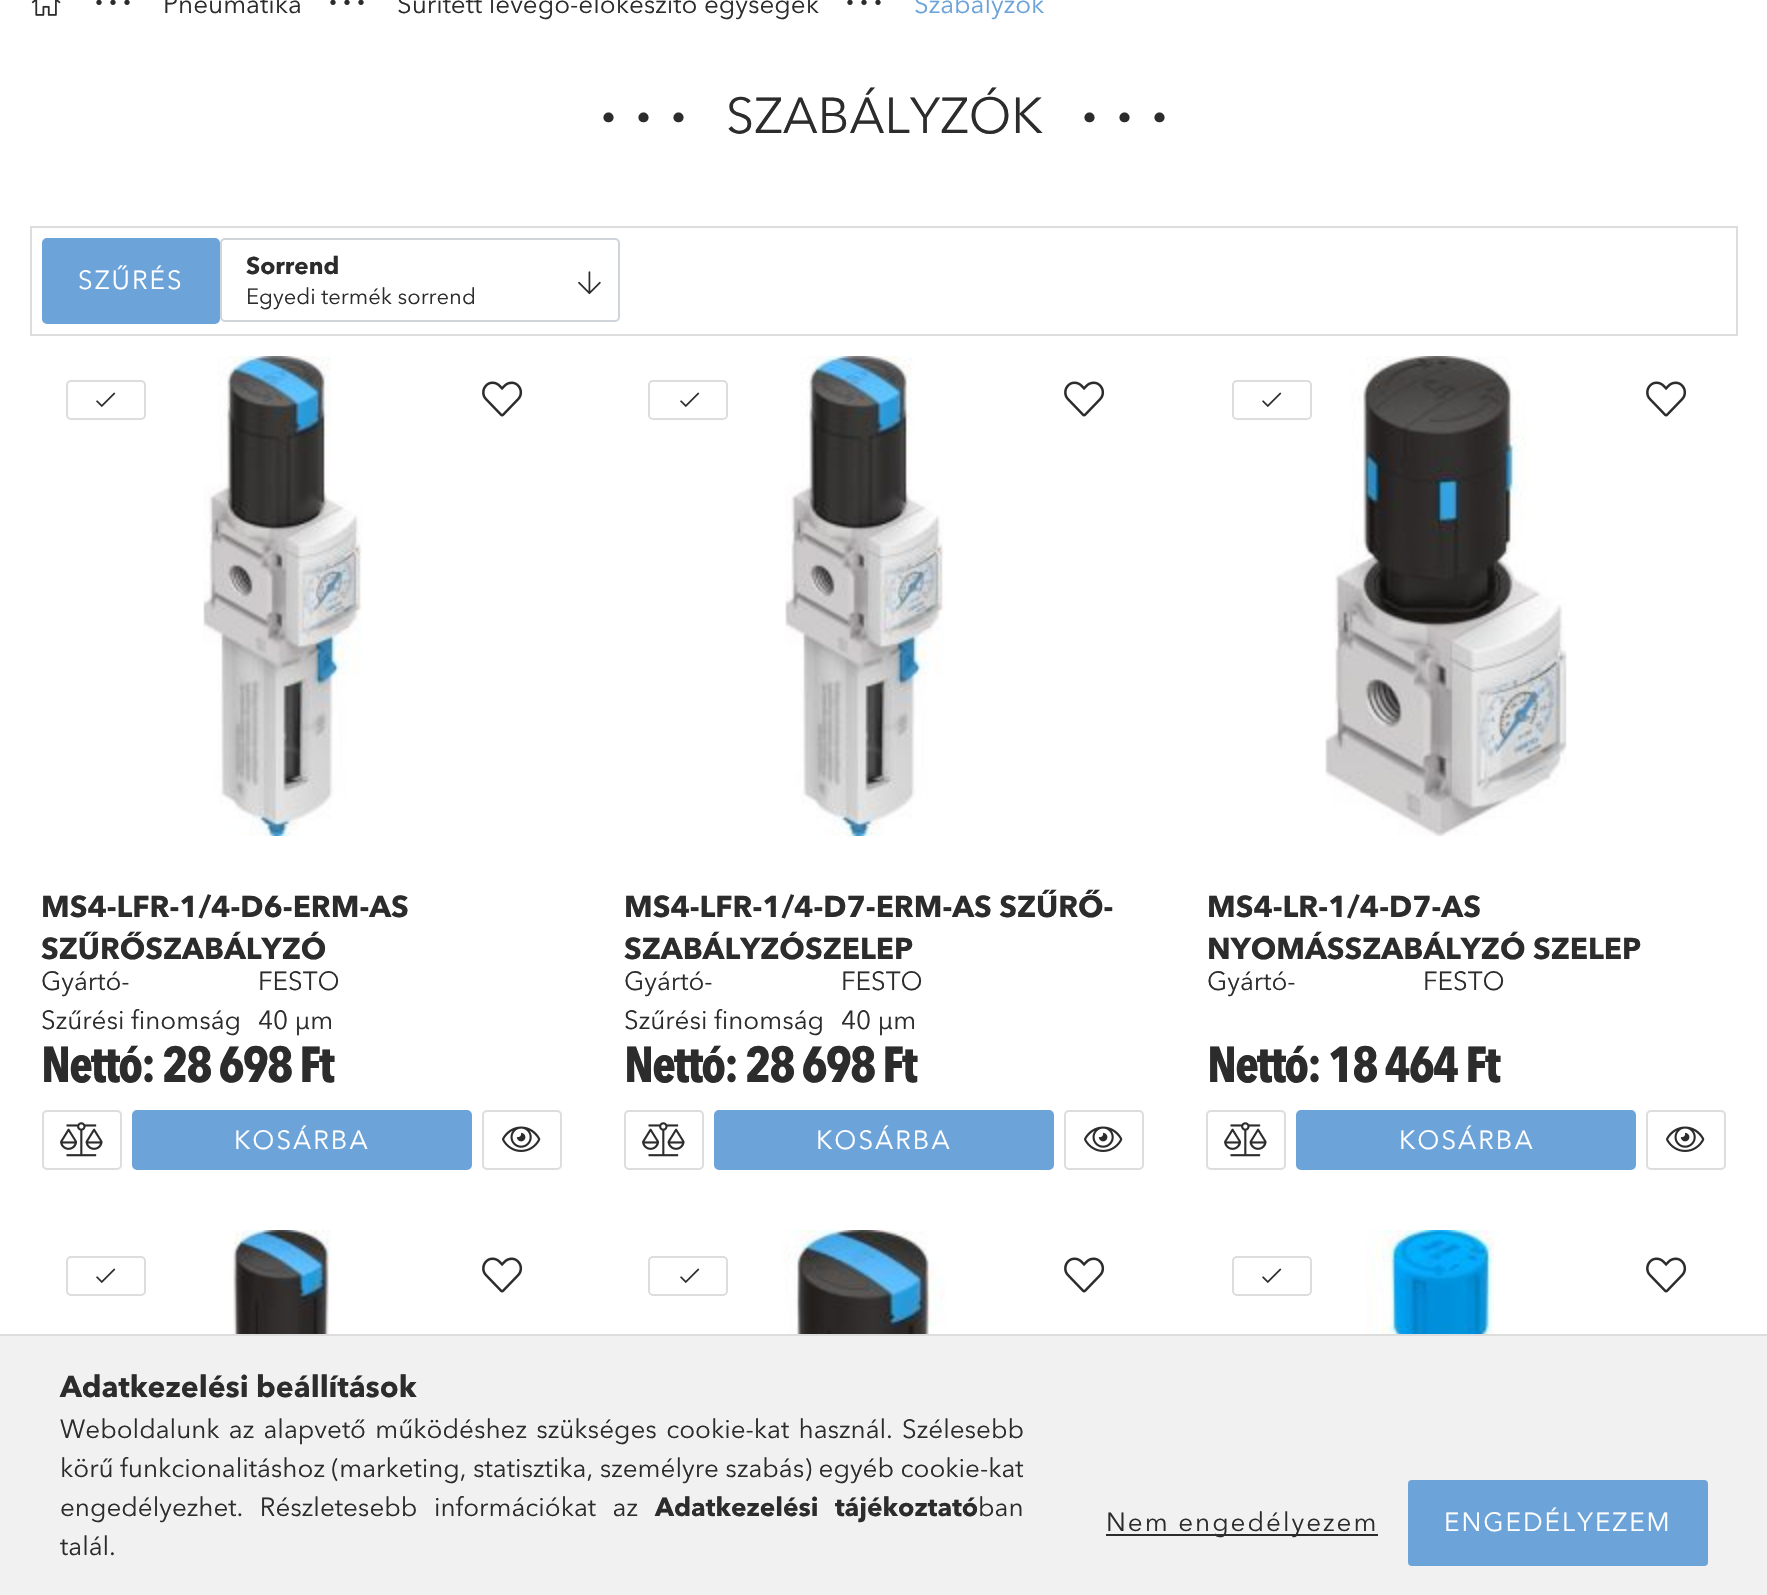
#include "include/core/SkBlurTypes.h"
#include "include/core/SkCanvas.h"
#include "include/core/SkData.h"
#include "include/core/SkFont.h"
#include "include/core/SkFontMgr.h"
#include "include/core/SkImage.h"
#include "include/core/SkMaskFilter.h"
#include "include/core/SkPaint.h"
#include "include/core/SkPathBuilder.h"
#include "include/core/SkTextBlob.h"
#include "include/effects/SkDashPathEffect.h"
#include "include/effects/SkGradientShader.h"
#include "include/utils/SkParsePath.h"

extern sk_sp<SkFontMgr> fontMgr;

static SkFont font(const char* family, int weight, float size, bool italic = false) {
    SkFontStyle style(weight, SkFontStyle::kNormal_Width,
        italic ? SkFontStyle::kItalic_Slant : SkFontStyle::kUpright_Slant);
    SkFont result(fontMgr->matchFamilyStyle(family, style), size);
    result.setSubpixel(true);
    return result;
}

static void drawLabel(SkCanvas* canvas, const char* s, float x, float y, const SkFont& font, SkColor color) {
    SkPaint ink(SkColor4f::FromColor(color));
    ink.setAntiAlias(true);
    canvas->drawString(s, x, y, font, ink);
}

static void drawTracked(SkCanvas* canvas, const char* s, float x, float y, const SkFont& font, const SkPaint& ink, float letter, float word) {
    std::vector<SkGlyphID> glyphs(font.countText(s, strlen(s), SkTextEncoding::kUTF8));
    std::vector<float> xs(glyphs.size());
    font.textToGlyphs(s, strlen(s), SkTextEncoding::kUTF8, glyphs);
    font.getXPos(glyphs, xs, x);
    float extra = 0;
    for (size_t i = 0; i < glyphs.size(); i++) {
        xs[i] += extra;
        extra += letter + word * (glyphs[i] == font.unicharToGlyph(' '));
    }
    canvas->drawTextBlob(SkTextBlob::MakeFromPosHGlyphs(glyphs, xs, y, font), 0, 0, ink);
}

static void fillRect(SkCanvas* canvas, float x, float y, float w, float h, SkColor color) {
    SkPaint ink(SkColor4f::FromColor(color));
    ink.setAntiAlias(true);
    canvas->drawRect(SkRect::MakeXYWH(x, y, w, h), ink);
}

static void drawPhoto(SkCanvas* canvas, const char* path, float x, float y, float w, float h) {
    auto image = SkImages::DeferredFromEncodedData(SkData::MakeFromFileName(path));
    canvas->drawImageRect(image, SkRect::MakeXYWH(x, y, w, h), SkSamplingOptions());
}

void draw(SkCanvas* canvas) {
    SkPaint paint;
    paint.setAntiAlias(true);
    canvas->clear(0xFFFFFFFF);
    drawPhoto(canvas, "assets/img1.png", 31, 0, 30, 16);
    SkFont font1 = font("Liberation Serif", 700, 32);
    paint.setColor(0xFF2C2C2C);
    drawTracked(canvas, "∙∙∙", 95, 13, font1, paint, 6, 0);
    SkFont font2 = font("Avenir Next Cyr", 400, 26);
    drawLabel(canvas, "Pneumatika", 163, 13, font2, 0xFF2C2C2C);
    drawTracked(canvas, "∙∙∙", 329, 13, font1, paint, 6, 0);
    drawLabel(canvas, "Sűrített levegő-előkészítő egységek", 397, 13, font2, 0xFF2C2C2C);
    drawTracked(canvas, "∙∙∙", 846, 13, font1, paint, 6, 0);
    drawLabel(canvas, "Szabályzók", 914, 13, font2, 0xFF6CA3D9);
    SkFont font3 = font("Avenir Next Cyr", 700, 50);
    drawTracked(canvas, "∙∙∙", 601, 132, font3, paint, 20, 0);
    SkFont font4 = font("Avenir Next Cyr", 400, 50);
    drawLabel(canvas, "SZABÁLYZÓK", 726, 133, font4, 0xFF2C2C2C);
    drawTracked(canvas, "∙∙∙", 1082, 132, font3, paint, 20, 0);
    paint.setStroke(true);
    paint.setStrokeWidth(2);
    paint.setColor(0xFFDDDDDD);
    canvas->drawRect(SkRect::MakeXYWH(31, 227, 1706, 108), paint);
    paint.setStroke(false);
    paint.setColor(0xFF6CA3D9);
    canvas->drawRoundRect(SkRect::MakeXYWH(43, 239, 176, 84), 4, 4, paint);
    paint.setStroke(true);
    canvas->drawRoundRect(SkRect::MakeXYWH(43, 239, 176, 84), 4, 4, paint);
    paint.setStroke(false);
    paint.setColor(0xFFFFFFFF);
    drawTracked(canvas, "SZŰRÉS", 78, 289, font2, paint, 2, 0);
    paint.setStroke(true);
    paint.setColor(0xFFCED4DA);
    canvas->drawRoundRect(SkRect::MakeXYWH(221, 239, 398, 82), 4, 4, paint);
    SkFont font5 = font("Avenir Next Cyr", 700, 24);
    drawLabel(canvas, "Sorrend", 246, 274, font5, 0xFF2C2C2C);
    drawPhoto(canvas, "assets/img2.png", 578, 271, 23, 24);
    SkFont font6 = font("Avenir Next Cyr", 400, 22);
    drawLabel(canvas, "Egyedi termék sorrend", 246, 304, font6, 0xFF2C2C2C);
    drawPhoto(canvas, "assets/img3.png", 203, 356, 160, 480);
    paint.setColor(0xFFDDDDDD);
    canvas->drawRoundRect(SkRect::MakeXYWH(67, 381, 78, 38), 4, 4, paint);
    drawPhoto(canvas, "assets/img4.png", 96, 392, 20, 15);
    drawPhoto(canvas, "assets/img5.png", 482, 381, 41, 36);
    SkFont font7 = font("Avenir Next Cyr", 700, 30);
    drawLabel(canvas, "MS4-LFR-1/4-D6-ERM-AS", 41, 917, font7, 0xFF2C2C2C);
    drawLabel(canvas, "SZŰRŐSZABÁLYZÓ", 41, 959, font7, 0xFF2C2C2C);
    drawLabel(canvas, "Gyártó-", 41, 990, font2, 0xFF2C2C2C);
    drawLabel(canvas, "FESTO", 258, 990, font2, 0xFF2C2C2C);
    drawLabel(canvas, "Szűrési finomság", 41, 1029, font2, 0xFF2C2C2C);
    drawLabel(canvas, "40 µm", 258, 1029, font2, 0xFF2C2C2C);
    SkFont font8 = font("Avenir Next", 700, 50);
    paint.setStroke(false);
    paint.setColor(0xFF2C2C2C);
    drawTracked(canvas, "Nettó: 28 698 Ft", 41, 1082, font8, paint, -2, 0);
    paint.setStroke(true);
    paint.setColor(0xFFDDDDDD);
    canvas->drawRoundRect(SkRect::MakeXYWH(43, 1111, 78, 58), 4, 4, paint);
    drawPhoto(canvas, "assets/img6.png", 60, 1122, 43, 35);
    paint.setStroke(false);
    paint.setColor(0xFF6CA3D9);
    canvas->drawRoundRect(SkRect::MakeXYWH(133, 1111, 338, 58), 4, 4, paint);
    paint.setStroke(true);
    canvas->drawRoundRect(SkRect::MakeXYWH(133, 1111, 338, 58), 4, 4, paint);
    paint.setStroke(false);
    paint.setColor(0xFFFFFFFF);
    drawTracked(canvas, "KOSÁRBA", 234, 1149, font2, paint, 2, 0);
    paint.setStroke(true);
    paint.setColor(0xFFDDDDDD);
    canvas->drawRoundRect(SkRect::MakeXYWH(483, 1111, 78, 58), 4, 4, paint);
    drawPhoto(canvas, "assets/img7.png", 502, 1126, 39, 26);
    drawPhoto(canvas, "assets/img8.png", 785, 356, 160, 480);
    canvas->drawRoundRect(SkRect::MakeXYWH(649, 381, 78, 38), 4, 4, paint);
    drawPhoto(canvas, "assets/img4.png", 680, 392, 20, 15);
    drawPhoto(canvas, "assets/img5.png", 1064, 381, 41, 36);
    drawLabel(canvas, "MS4-LFR-1/4-D7-ERM-AS SZŰRŐ-", 624, 917, font7, 0xFF2C2C2C);
    drawLabel(canvas, "SZABÁLYZÓSZELEP", 624, 959, font7, 0xFF2C2C2C);
    drawLabel(canvas, "Gyártó-", 624, 990, font2, 0xFF2C2C2C);
    drawLabel(canvas, "FESTO", 841, 990, font2, 0xFF2C2C2C);
    drawLabel(canvas, "Szűrési finomság", 624, 1029, font2, 0xFF2C2C2C);
    drawLabel(canvas, "40 µm", 841, 1029, font2, 0xFF2C2C2C);
    paint.setStroke(false);
    paint.setColor(0xFF2C2C2C);
    drawTracked(canvas, "Nettó: 28 698 Ft", 624, 1082, font8, paint, -2, 0);
    paint.setStroke(true);
    paint.setColor(0xFFDDDDDD);
    canvas->drawRoundRect(SkRect::MakeXYWH(625, 1111, 78, 58), 4, 4, paint);
    drawPhoto(canvas, "assets/img6.png", 642, 1122, 43, 35);
    paint.setStroke(false);
    paint.setColor(0xFF6CA3D9);
    canvas->drawRoundRect(SkRect::MakeXYWH(715, 1111, 338, 58), 4, 4, paint);
    paint.setStroke(true);
    canvas->drawRoundRect(SkRect::MakeXYWH(715, 1111, 338, 58), 4, 4, paint);
    paint.setStroke(false);
    paint.setColor(0xFFFFFFFF);
    drawTracked(canvas, "KOSÁRBA", 816, 1149, font2, paint, 2, 0);
    paint.setStroke(true);
    paint.setColor(0xFFDDDDDD);
    canvas->drawRoundRect(SkRect::MakeXYWH(1065, 1111, 78, 58), 4, 4, paint);
    drawPhoto(canvas, "assets/img7.png", 1084, 1126, 39, 26);
    drawPhoto(canvas, "assets/img9.png", 1325, 356, 242, 480);
    canvas->drawRoundRect(SkRect::MakeXYWH(1233, 381, 78, 38), 4, 4, paint);
    drawPhoto(canvas, "assets/img4.png", 1262, 392, 20, 15);
    drawPhoto(canvas, "assets/img5.png", 1646, 381, 41, 36);
    drawLabel(canvas, "MS4-LR-1/4-D7-AS", 1207, 917, font7, 0xFF2C2C2C);
    drawLabel(canvas, "NYOMÁSSZABÁLYZÓ SZELEP", 1207, 959, font7, 0xFF2C2C2C);
    drawLabel(canvas, "Gyártó-", 1207, 990, font2, 0xFF2C2C2C);
    drawLabel(canvas, "FESTO", 1423, 990, font2, 0xFF2C2C2C);
    paint.setStroke(false);
    paint.setColor(0xFF2C2C2C);
    drawTracked(canvas, "Nettó: 18 464 Ft", 1207, 1082, font8, paint, -2, 0);
    paint.setStroke(true);
    paint.setColor(0xFFDDDDDD);
    canvas->drawRoundRect(SkRect::MakeXYWH(1207, 1111, 78, 58), 4, 4, paint);
    drawPhoto(canvas, "assets/img6.png", 1224, 1122, 43, 35);
    paint.setStroke(false);
    paint.setColor(0xFF6CA3D9);
    canvas->drawRoundRect(SkRect::MakeXYWH(1297, 1111, 338, 58), 4, 4, paint);
    paint.setStroke(true);
    canvas->drawRoundRect(SkRect::MakeXYWH(1297, 1111, 338, 58), 4, 4, paint);
    paint.setStroke(false);
    paint.setColor(0xFFFFFFFF);
    drawTracked(canvas, "KOSÁRBA", 1399, 1149, font2, paint, 2, 0);
    paint.setStroke(true);
    paint.setColor(0xFFDDDDDD);
    canvas->drawRoundRect(SkRect::MakeXYWH(1647, 1111, 78, 58), 4, 4, paint);
    drawPhoto(canvas, "assets/img7.png", 1666, 1126, 39, 26);
    drawPhoto(canvas, "assets/img10.png", 202, 1230, 160, 104);
    canvas->drawRoundRect(SkRect::MakeXYWH(67, 1257, 78, 38), 4, 4, paint);
    drawPhoto(canvas, "assets/img4.png", 96, 1268, 20, 15);
    drawPhoto(canvas, "assets/img5.png", 482, 1257, 41, 36);
    drawPhoto(canvas, "assets/img11.png", 754, 1230, 221, 104);
    canvas->drawRoundRect(SkRect::MakeXYWH(649, 1257, 78, 38), 4, 4, paint);
    drawPhoto(canvas, "assets/img4.png", 680, 1268, 20, 15);
    drawPhoto(canvas, "assets/img5.png", 1064, 1257, 41, 36);
    drawPhoto(canvas, "assets/img12.png", 1366, 1230, 160, 104);
    canvas->drawRoundRect(SkRect::MakeXYWH(1233, 1257, 78, 38), 4, 4, paint);
    drawPhoto(canvas, "assets/img4.png", 1262, 1268, 20, 15);
    drawPhoto(canvas, "assets/img5.png", 1646, 1257, 41, 36);
    fillRect(canvas, 0, 1336, 1767, 259, 0xFFF1F1F1);
    fillRect(canvas, 0, 1334, 1767, 2, 0xFFDDDDDD);
    drawLabel(canvas, "Adatkezelési beállítások", 60, 1397, font7, 0xFF2C2C2C);
    paint.setStroke(false);
    paint.setColor(0xFF2C2C2C);
    drawTracked(canvas, "Weboldalunk az alapvető működéshez szükséges cookie-kat használ. Szélesebb", 60, 1438, font2, paint, 0, 2.75f);
    drawLabel(canvas, "körű funkcionalitáshoz (marketing, statisztika, személyre szabás) egyéb cookie-kat", 60, 1477, font2, 0xFF2C2C2C);
    drawTracked(canvas, "engedélyezhet. Részletesebb információkat az", 60, 1516, font2, paint, 0, 10);
    SkFont font9 = font("Avenir Next Cyr", 700, 26);
    drawTracked(canvas, "Adatkezelési tájékoztató", 655, 1516, font9, paint, 0, 10);
    drawLabel(canvas, "ban", 978, 1516, font2, 0xFF2C2C2C);
    drawLabel(canvas, "talál.", 60, 1555, font2, 0xFF2C2C2C);
    fillRect(canvas, 1106, 1534, 272, 2, 0xFF2C2C2C);
    drawTracked(canvas, "Nem engedélyezem", 1106, 1531, font2, paint, 2, 0);
    paint.setColor(0xFF6CA3D9);
    canvas->drawRoundRect(SkRect::MakeXYWH(1409, 1481, 298, 84), 3, 3, paint);
    paint.setStroke(true);
    canvas->drawRoundRect(SkRect::MakeXYWH(1409, 1481, 298, 84), 3, 3, paint);
    paint.setStroke(false);
    paint.setColor(0xFFFFFFFF);
    drawTracked(canvas, "ENGEDÉLYEZEM", 1444, 1531, font2, paint, 2, 0);
}
